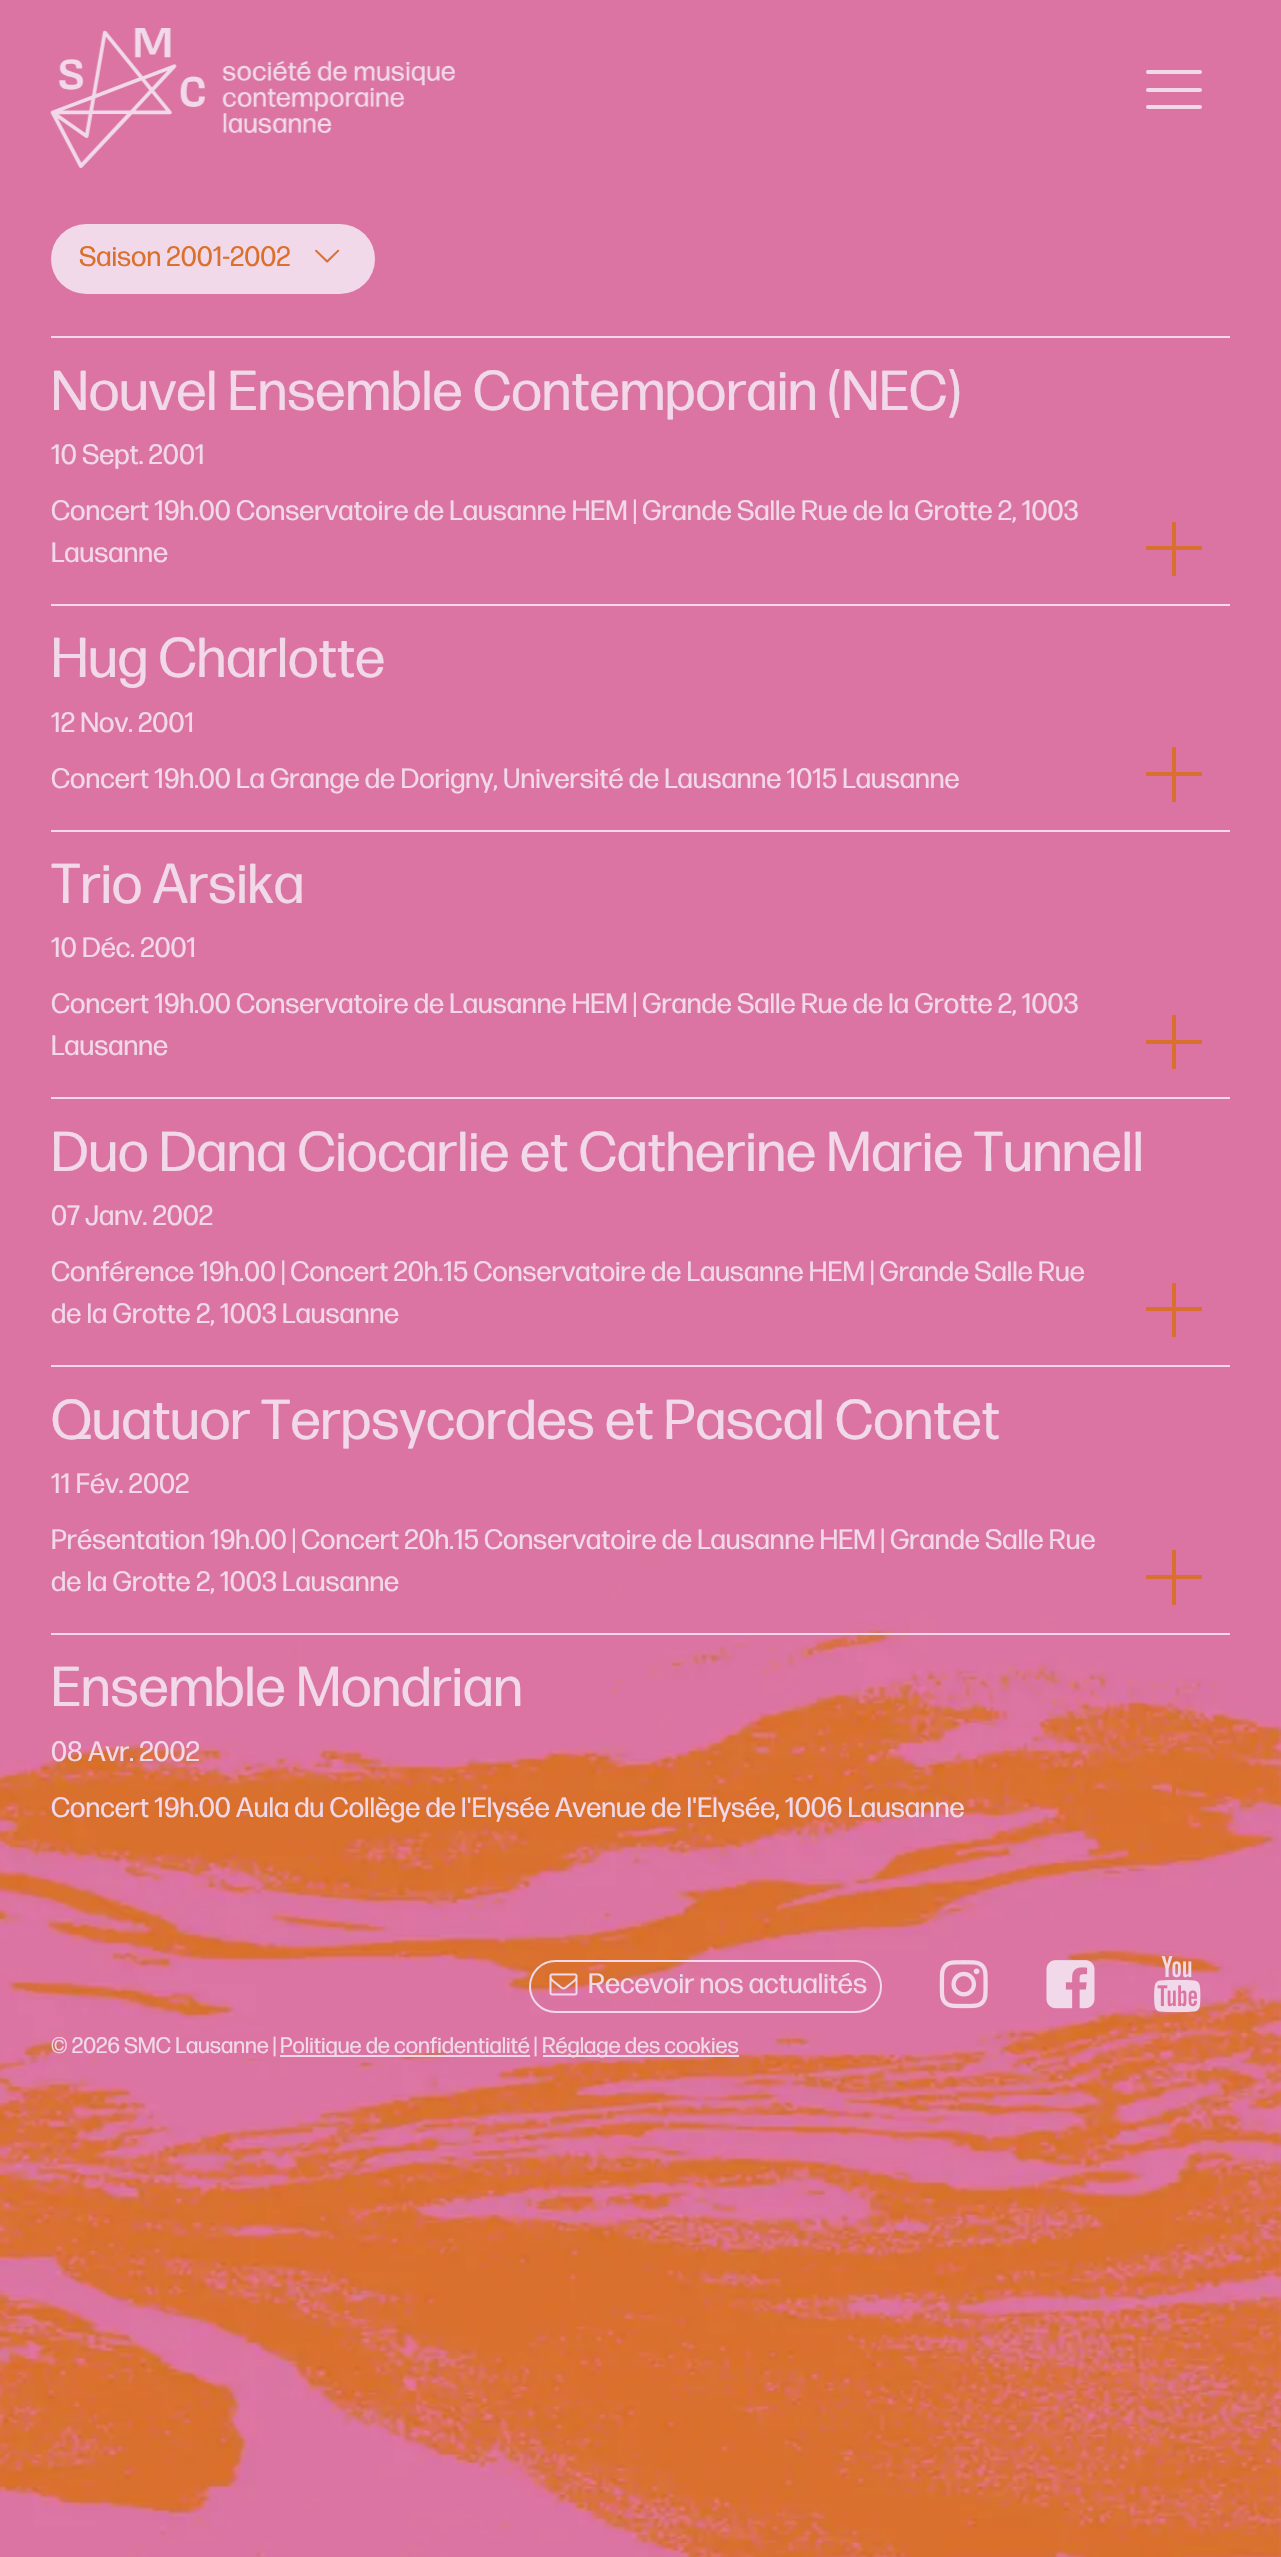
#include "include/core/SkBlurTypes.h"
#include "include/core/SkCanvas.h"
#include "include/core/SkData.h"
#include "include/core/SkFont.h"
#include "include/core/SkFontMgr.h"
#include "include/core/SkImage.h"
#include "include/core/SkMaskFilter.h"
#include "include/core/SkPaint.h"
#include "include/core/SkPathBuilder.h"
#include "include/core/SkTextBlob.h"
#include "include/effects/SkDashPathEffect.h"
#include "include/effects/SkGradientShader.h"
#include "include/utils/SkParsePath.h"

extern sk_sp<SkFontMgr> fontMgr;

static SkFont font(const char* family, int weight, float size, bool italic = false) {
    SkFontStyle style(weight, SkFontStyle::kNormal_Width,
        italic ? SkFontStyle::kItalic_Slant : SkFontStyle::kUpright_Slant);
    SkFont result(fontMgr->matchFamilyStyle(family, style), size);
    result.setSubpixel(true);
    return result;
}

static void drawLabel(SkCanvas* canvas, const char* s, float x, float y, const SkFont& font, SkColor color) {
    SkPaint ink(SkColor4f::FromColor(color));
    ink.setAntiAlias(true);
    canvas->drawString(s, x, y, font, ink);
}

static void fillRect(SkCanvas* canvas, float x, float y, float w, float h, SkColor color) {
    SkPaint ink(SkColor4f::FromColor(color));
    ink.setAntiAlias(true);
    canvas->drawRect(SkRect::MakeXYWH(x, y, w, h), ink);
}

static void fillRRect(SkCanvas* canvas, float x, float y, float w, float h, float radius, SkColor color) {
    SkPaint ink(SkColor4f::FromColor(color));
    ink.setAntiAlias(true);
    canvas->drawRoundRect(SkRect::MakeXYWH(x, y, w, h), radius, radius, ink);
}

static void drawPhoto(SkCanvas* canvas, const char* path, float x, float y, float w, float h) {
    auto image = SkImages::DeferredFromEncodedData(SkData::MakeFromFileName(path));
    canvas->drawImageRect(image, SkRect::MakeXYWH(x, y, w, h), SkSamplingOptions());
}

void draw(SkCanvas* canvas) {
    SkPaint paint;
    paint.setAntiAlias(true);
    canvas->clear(0xFFDB74A3);
    drawPhoto(canvas, "assets/img1.png", 0, 1551, 1281, 1006);
    drawPhoto(canvas, "assets/img2.png", 50, 28, 405, 140);
    fillRRect(canvas, 1146, 88, 56, 4, 2, 0xFFF1D9E9);
    fillRRect(canvas, 1146, 70, 56, 4, 2, 0xFFF1D9E9);
    fillRRect(canvas, 1146, 105, 56, 4, 2, 0xFFF1D9E9);
    fillRRect(canvas, 51, 224, 324, 70, 35, 0xFFF1D9E9);
    SkFont font1 = font("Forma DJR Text", 400, 28);
    drawLabel(canvas, "Saison 2001-2002", 79, 266, font1, 0xFFDA702D);
    drawPhoto(canvas, "assets/img3.png", 315, 249, 25, 14);
    fillRect(canvas, 51, 336, 1179, 2, 0xFFF1D9E9);
    SkFont font2 = font("Forma DJR Text", 400, 56);
    drawLabel(canvas, "Nouvel Ensemble Contemporain (NEC)", 51, 410, font2, 0xFFF1D9E9);
    drawLabel(canvas, "10 Sept. 2001", 51, 464, font1, 0xFFF1D9E9);
    drawLabel(canvas, "Concert 19h.00 Conservatoire de Lausanne HEM | Grande Salle Rue de la Grotte 2, 1003", 51, 520, font1, 0xFFF1D9E9);
    drawLabel(canvas, "Lausanne", 51, 562, font1, 0xFFF1D9E9);
    fillRect(canvas, 1146, 546, 56, 4, 0xFFDA702D);
    fillRect(canvas, 1172, 522, 4, 54, 0xFFDA702D);
    fillRect(canvas, 51, 604, 1179, 2, 0xFFF1D9E9);
    drawLabel(canvas, "Hug Charlotte", 51, 677, font2, 0xFFF1D9E9);
    drawLabel(canvas, "12 Nov. 2001", 51, 732, font1, 0xFFF1D9E9);
    drawLabel(canvas, "Concert 19h.00 La Grange de Dorigny, Université de Lausanne 1015 Lausanne", 51, 788, font1, 0xFFF1D9E9);
    fillRect(canvas, 1146, 772, 56, 4, 0xFFDA702D);
    fillRect(canvas, 1172, 747, 4, 55, 0xFFDA702D);
    fillRect(canvas, 51, 830, 1179, 2, 0xFFF1D9E9);
    drawLabel(canvas, "Trio Arsika", 51, 903, font2, 0xFFF1D9E9);
    drawLabel(canvas, "10 Déc. 2001", 51, 957, font1, 0xFFF1D9E9);
    drawLabel(canvas, "Concert 19h.00 Conservatoire de Lausanne HEM | Grande Salle Rue de la Grotte 2, 1003", 51, 1013, font1, 0xFFF1D9E9);
    drawLabel(canvas, "Lausanne", 51, 1055, font1, 0xFFF1D9E9);
    fillRect(canvas, 1146, 1040, 56, 4, 0xFFDA702D);
    fillRect(canvas, 1172, 1015, 4, 54, 0xFFDA702D);
    fillRect(canvas, 51, 1097, 1179, 2, 0xFFF1D9E9);
    drawLabel(canvas, "Duo Dana Ciocarlie et Catherine Marie Tunnell", 51, 1171, font2, 0xFFF1D9E9);
    drawLabel(canvas, "07 Janv. 2002", 51, 1225, font1, 0xFFF1D9E9);
    drawLabel(canvas, "Conférence 19h.00 | Concert 20h.15 Conservatoire de Lausanne HEM | Grande Salle Rue", 51, 1281, font1, 0xFFF1D9E9);
    drawLabel(canvas, "de la Grotte 2, 1003 Lausanne", 51, 1323, font1, 0xFFF1D9E9);
    fillRect(canvas, 1146, 1307, 56, 4, 0xFFDA702D);
    fillRect(canvas, 1172, 1283, 4, 54, 0xFFDA702D);
    fillRect(canvas, 51, 1365, 1179, 2, 0xFFF1D9E9);
    drawLabel(canvas, "Quatuor Terpsycordes et Pascal Contet", 51, 1439, font2, 0xFFF1D9E9);
    drawLabel(canvas, "11 Fév. 2002", 51, 1493, font1, 0xFFF1D9E9);
    drawLabel(canvas, "Présentation 19h.00 | Concert 20h.15 Conservatoire de Lausanne HEM | Grande Salle Rue", 51, 1549, font1, 0xFFF1D9E9);
    drawLabel(canvas, "de la Grotte 2, 1003 Lausanne", 51, 1591, font1, 0xFFF1D9E9);
    fillRect(canvas, 1146, 1575, 56, 4, 0xFFDA702D);
    fillRect(canvas, 1172, 1550, 4, 55, 0xFFDA702D);
    fillRect(canvas, 51, 1633, 1179, 2, 0xFFF1D9E9);
    drawLabel(canvas, "Ensemble Mondrian", 51, 1706, font2, 0xFFF1D9E9);
    drawLabel(canvas, "08 Avr. 2002", 51, 1761, font1, 0xFFF1D9E9);
    drawLabel(canvas, "Concert 19h.00 Aula du Collège de l'Elysée Avenue de l'Elysée, 1006 Lausanne", 51, 1817, font1, 0xFFF1D9E9);
    fillRect(canvas, 1161, 1801, 41, 4, 0xFFDA702D);
    fillRect(canvas, 1172, 1776, 4, 34, 0xFFDA702D);
    paint.setStroke(true);
    paint.setStrokeWidth(2);
    paint.setColor(0xFFF1D9E9);
    canvas->drawRoundRect(SkRect::MakeXYWH(530, 1961, 351, 51), 25.5f, 25.5f, paint);
    drawPhoto(canvas, "assets/img4.png", 549, 1973, 29, 23);
    drawLabel(canvas, "Recevoir nos actualités", 588, 1993, font1, 0xFFF1D9E9);
    drawPhoto(canvas, "assets/img5.png", 939, 1960, 49, 49);
    drawPhoto(canvas, "assets/img6.png", 1046, 1960, 49, 49);
    drawPhoto(canvas, "assets/img7.png", 1154, 1956, 47, 57);
    SkFont font3 = font("Forma DJR Text", 400, 22.4f);
    drawLabel(canvas, "© 2026 SMC Lausanne |", 51, 2053, font3, 0xFFF1D9E9);
    fillRect(canvas, 280, 2055, 250, 2, 0xFFF1D9E9);
    drawLabel(canvas, "Politique de confidentialité", 280, 2053, font3, 0xFFF1D9E9);
    drawLabel(canvas, "|", 534, 2053, font3, 0xFFF1D9E9);
    fillRect(canvas, 543, 2055, 196, 2, 0xFFF1D9E9);
    drawLabel(canvas, "Réglage des cookies", 542, 2053, font3, 0xFFF1D9E9);
}
